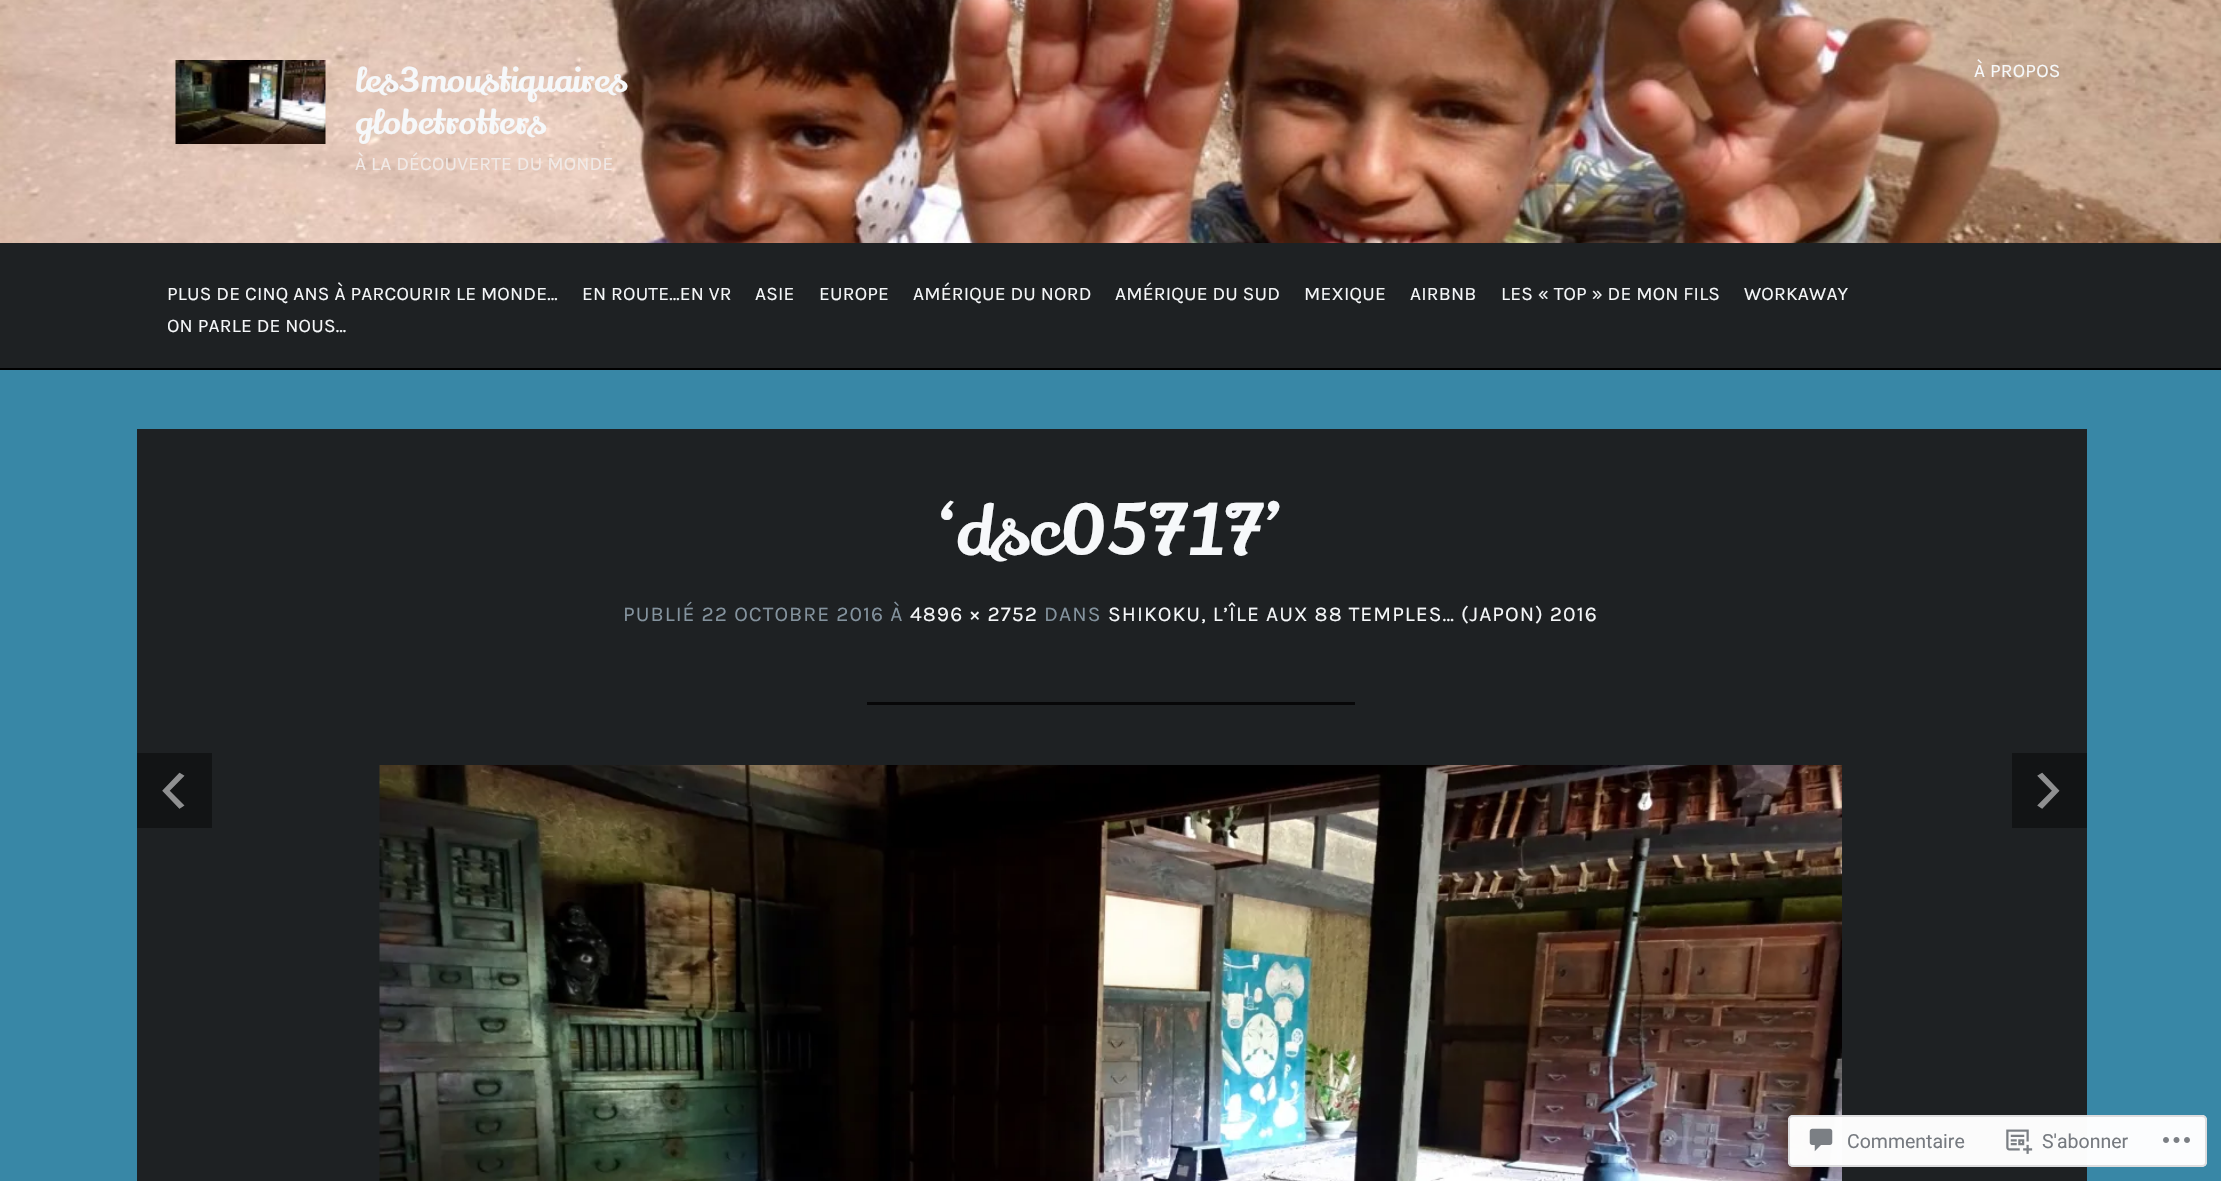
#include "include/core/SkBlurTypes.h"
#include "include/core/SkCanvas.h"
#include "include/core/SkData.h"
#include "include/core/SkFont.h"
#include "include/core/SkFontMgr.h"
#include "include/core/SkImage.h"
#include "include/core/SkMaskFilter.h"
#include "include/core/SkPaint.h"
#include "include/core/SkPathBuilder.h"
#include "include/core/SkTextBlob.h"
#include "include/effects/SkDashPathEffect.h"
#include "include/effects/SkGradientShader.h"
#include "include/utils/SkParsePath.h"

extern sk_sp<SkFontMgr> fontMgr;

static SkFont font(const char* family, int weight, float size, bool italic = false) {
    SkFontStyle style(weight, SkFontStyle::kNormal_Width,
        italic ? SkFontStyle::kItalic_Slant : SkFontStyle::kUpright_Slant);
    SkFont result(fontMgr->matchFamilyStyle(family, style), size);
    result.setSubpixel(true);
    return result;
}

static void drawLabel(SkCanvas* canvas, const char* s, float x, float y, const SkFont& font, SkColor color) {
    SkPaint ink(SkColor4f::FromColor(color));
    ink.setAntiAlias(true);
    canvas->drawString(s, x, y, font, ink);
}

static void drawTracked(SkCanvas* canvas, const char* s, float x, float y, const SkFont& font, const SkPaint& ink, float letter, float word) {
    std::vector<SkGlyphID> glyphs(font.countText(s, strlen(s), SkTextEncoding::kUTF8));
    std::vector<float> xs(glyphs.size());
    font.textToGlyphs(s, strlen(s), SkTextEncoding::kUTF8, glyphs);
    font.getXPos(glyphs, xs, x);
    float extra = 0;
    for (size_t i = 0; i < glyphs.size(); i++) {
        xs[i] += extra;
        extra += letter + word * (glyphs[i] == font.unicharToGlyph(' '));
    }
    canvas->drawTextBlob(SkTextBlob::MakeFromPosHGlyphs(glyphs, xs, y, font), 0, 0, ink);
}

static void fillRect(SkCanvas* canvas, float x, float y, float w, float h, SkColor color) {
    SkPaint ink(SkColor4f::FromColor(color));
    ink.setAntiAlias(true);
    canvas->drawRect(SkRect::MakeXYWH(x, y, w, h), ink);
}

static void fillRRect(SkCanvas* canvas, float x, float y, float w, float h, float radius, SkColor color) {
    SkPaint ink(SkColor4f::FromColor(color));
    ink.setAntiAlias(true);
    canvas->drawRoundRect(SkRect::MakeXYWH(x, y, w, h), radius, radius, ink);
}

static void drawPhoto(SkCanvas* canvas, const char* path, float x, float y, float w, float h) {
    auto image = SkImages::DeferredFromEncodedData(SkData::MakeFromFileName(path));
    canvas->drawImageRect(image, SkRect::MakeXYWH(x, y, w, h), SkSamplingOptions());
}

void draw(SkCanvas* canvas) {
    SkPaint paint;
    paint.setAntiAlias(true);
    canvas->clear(0xFF3887A6);
    drawPhoto(canvas, "assets/img1.png", 0, 0, 2221, 243);
    drawPhoto(canvas, "assets/img2.png", 175, 60, 151, 84);
    SkFont font1 = font("Lily Script One", 400, 33.5f);
    drawLabel(canvas, "les3moustiquaires", 355, 92, font1, 0xFFF6F8FA);
    drawLabel(canvas, "globetrotters", 355, 134, font1, 0xFFF6F8FA);
    SkFont font2 = font("Karla", 400, 19.2f);
    paint.setColor(0xFFF1EAE7);
    drawTracked(canvas, "À LA DÉCOUVERTE DU MONDE", 355, 170, font2, paint, 0.2f, 0);
    paint.setColor(0xFFF6F8FA);
    drawTracked(canvas, "À PROPOS", 1974, 77, font2, paint, 0.2f, 0);
    fillRect(canvas, 0, 243, 2221, 125, 0xFF1E2123);
    fillRect(canvas, 0, 368, 2221, 2, 0xFF000000);
    drawTracked(canvas, "PLUS DE CINQ ANS À PARCOURIR LE MONDE…", 167, 300, font2, paint, 0.2f, 0);
    drawTracked(canvas, "EN ROUTE…EN VR", 582, 300, font2, paint, 0.2f, 0);
    drawTracked(canvas, "ASIE", 755, 300, font2, paint, 0.2f, 0);
    drawTracked(canvas, "EUROPE", 819, 300, font2, paint, 0.2f, 0);
    drawTracked(canvas, "AMÉRIQUE DU NORD", 913, 300, font2, paint, 0.2f, 0);
    drawTracked(canvas, "AMÉRIQUE DU SUD", 1115, 300, font2, paint, 0.2f, 0);
    drawTracked(canvas, "MEXIQUE", 1304, 300, font2, paint, 0.2f, 0);
    drawTracked(canvas, "AIRBNB", 1410, 300, font2, paint, 0.2f, 0);
    drawTracked(canvas, "LES « TOP » DE MON FILS", 1501, 300, font2, paint, 0.2f, 0);
    drawTracked(canvas, "WORKAWAY", 1744, 300, font2, paint, 0.2f, 0);
    drawTracked(canvas, "ON PARLE DE NOUS…", 167, 332, font2, paint, 0.2f, 0);
    fillRect(canvas, 137, 429, 1950, 752, 0xFF1E2123);
    SkFont font3 = font("Lily Script One", 400, 68.5f);
    drawLabel(canvas, "‘dsc05717’", 939, 555, font3, 0xFFF6F8FA);
    SkFont font4 = font("Karla", 400, 21.1f);
    paint.setColor(0xFF84939E);
    drawTracked(canvas, "PUBLIÉ 22 OCTOBRE 2016 À", 623, 621, font4, paint, 1.05f, 0);
    paint.setColor(0xFFF6F8FA);
    drawTracked(canvas, "4896 × 2752", 910, 621, font4, paint, 1.05f, 0);
    paint.setColor(0xFF84939E);
    drawTracked(canvas, "DANS", 1044, 621, font4, paint, 1.05f, 0);
    paint.setColor(0xFFF6F8FA);
    drawTracked(canvas, "SHIKOKU, L’ÎLE AUX 88 TEMPLES… (JAPON) 2016", 1108, 621, font4, paint, 1.05f, 0);
    fillRect(canvas, 867, 702, 488, 3, 0xFF070708);
    drawPhoto(canvas, "assets/img3.png", 379, 765, 1463, 416);
    fillRect(canvas, 137, 753, 75, 75, 0xFF121415);
    SkFont font5 = font("Karla", 400, 84);
    drawLabel(canvas, "‹", 158, 813, font5, 0xFF8F9091);
    fillRect(canvas, 2012, 753, 75, 75, 0xFF121415);
    drawLabel(canvas, "›", 2033, 813, font5, 0xFF8F9091);
    fillRRect(canvas, 1788, 1115, 419, 52, 5, 0xFAFFFFFF);
    paint.setStroke(true);
    paint.setStrokeWidth(2);
    paint.setColor(0xFADCDCDE);
    canvas->drawRoundRect(SkRect::MakeXYWH(1789, 1116, 417, 50), 4, 4, paint);
    drawPhoto(canvas, "assets/img4.png", 1809, 1128, 24, 24);
    SkFont font6 = font("Roboto", 400, 19.5f);
    drawLabel(canvas, "Commentaire", 1847, 1148, font6, 0xFF767A80);
    drawPhoto(canvas, "assets/img5.png", 2006, 1129, 27, 25);
    drawLabel(canvas, "S'abonner", 2042, 1148, font6, 0xFF767A80);
    drawPhoto(canvas, "assets/img6.png", 2163, 1137, 27, 6);
}
